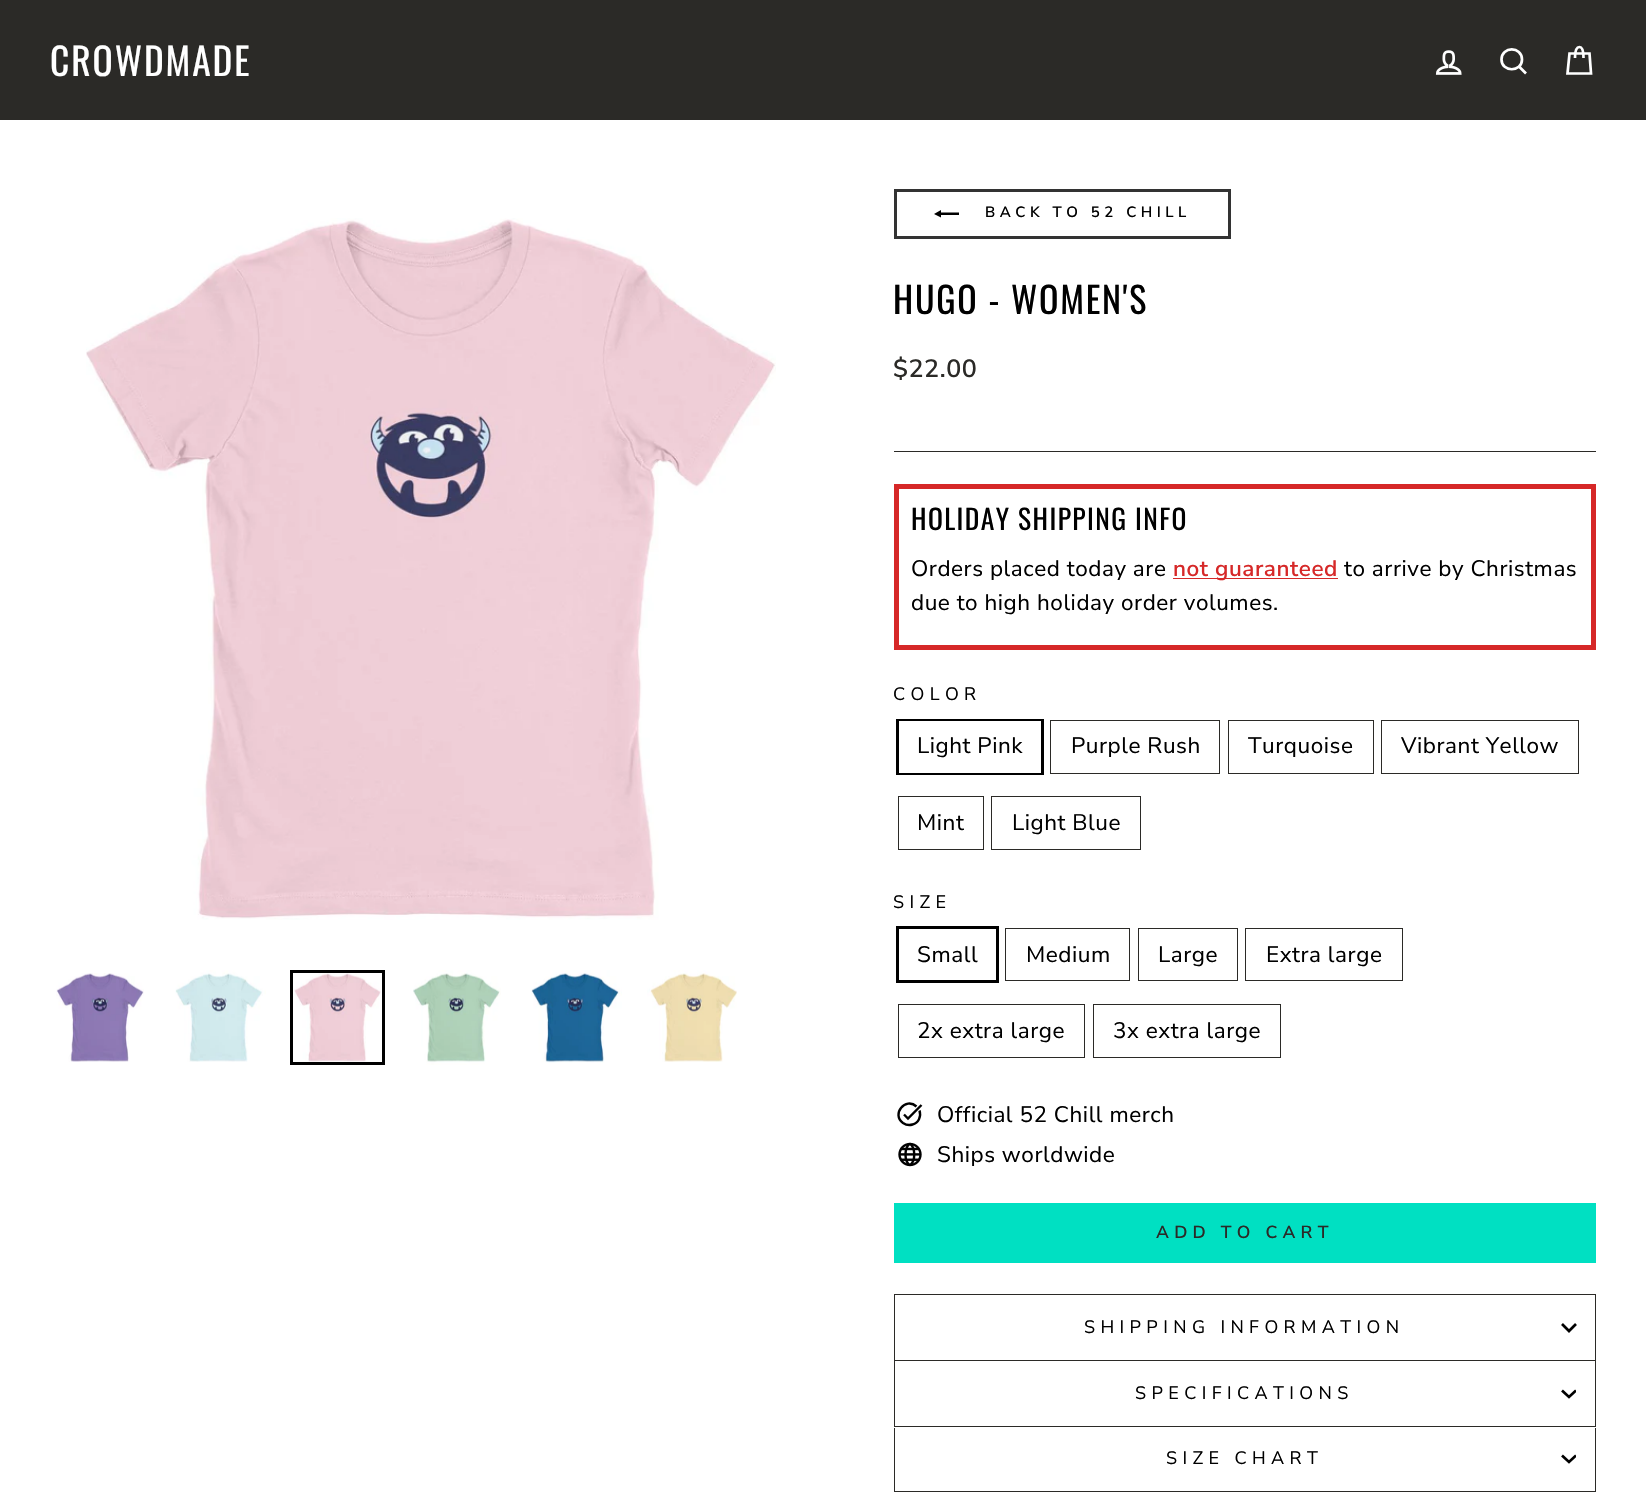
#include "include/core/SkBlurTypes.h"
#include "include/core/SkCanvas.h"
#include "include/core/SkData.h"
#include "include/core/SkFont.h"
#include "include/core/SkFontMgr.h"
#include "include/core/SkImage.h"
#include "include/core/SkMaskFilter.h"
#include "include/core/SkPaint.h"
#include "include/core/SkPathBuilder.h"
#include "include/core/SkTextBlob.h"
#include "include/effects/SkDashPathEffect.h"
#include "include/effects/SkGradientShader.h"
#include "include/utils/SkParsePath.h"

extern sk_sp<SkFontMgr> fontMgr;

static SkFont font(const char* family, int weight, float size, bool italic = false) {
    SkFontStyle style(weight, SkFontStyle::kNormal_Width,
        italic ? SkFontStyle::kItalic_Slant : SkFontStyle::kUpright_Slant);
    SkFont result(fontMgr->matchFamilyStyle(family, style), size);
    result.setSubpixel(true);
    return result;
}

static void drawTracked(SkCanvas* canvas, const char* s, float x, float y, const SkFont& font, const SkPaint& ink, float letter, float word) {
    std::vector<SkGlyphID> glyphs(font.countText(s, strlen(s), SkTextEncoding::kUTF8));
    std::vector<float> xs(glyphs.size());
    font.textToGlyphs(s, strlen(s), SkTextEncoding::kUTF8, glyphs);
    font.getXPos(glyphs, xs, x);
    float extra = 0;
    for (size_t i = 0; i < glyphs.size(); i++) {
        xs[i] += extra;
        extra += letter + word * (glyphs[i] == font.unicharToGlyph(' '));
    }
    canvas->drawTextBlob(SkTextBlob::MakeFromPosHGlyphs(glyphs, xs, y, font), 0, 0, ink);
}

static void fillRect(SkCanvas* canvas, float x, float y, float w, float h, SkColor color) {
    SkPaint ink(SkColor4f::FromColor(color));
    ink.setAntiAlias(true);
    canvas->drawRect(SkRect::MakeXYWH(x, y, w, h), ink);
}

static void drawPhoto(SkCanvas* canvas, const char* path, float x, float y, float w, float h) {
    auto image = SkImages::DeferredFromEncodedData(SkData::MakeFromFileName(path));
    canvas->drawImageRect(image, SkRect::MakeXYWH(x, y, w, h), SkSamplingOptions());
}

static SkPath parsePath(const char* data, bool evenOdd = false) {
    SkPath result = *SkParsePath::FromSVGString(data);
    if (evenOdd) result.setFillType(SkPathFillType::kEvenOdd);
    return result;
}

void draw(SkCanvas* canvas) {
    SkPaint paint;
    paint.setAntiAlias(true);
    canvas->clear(0xFFFFFFFF);
    fillRect(canvas, 0, 0, 1646, 120, 0xFF2B2A27);
    SkFont font1 = font("Oswald", 400, 37.5f);
    paint.setColor(0xFFFFFFFF);
    drawTracked(canvas, "CROWDMADE", 50, 76, font1, paint, 1.9f, 0);
    drawPhoto(canvas, "assets/img1.png", 1435, 50, 27, 25);
    paint.setStroke(true);
    paint.setStrokeWidth(2.7f);
    canvas->drawPath(parsePath("M1522 59.5C1522 72.5 1501.5 72.5 1501.5 59.5C1501.5 46 1522 46 1522 59.5ZM1526 73.5L1519 66.5"), paint);
    canvas->drawPath(parsePath("M1575 58C1575 49.5 1577 47 1579.5 47C1581.5 47 1583.5 49.5 1583.5 58M1569.5 53.5H1589.5L1591 73.5H1567.5Z"), paint);
    drawPhoto(canvas, "assets/img2.png", 86, 218, 690, 702);
    drawPhoto(canvas, "assets/img3.png", 56, 973, 88, 89);
    drawPhoto(canvas, "assets/img4.png", 175, 970, 91, 92);
    drawPhoto(canvas, "assets/img5.png", 294, 973, 87, 89);
    paint.setStrokeWidth(3);
    paint.setColor(0xFF000000);
    canvas->drawRect(SkRect::MakeXYWH(291.5f, 971.5f, 92, 92), paint);
    drawPhoto(canvas, "assets/img6.png", 413, 970, 88, 95);
    drawPhoto(canvas, "assets/img7.png", 531, 970, 91, 93);
    drawPhoto(canvas, "assets/img8.png", 647, 970, 90, 92);
    paint.setColor(0xFF333333);
    canvas->drawRect(SkRect::MakeXYWH(895.5f, 190.5f, 334, 47), paint);
    paint.setStroke(false);
    paint.setColor(0xFF000000);
    canvas->drawPath(parsePath("M959 212.5V215H941V217.5L934 214L941 210V212.5Z"), paint);
    SkFont font2 = font("Nunito Sans", 600, 15);
    drawTracked(canvas, "BACK TO 52 CHILL", 985, 217, font2, paint, 4.5f, 0);
    SkFont font3 = font("Oswald", 400, 36);
    drawTracked(canvas, "HUGO - WOMEN'S", 893, 314, font3, paint, 1.75f, 0);
    SkFont font4 = font("Nunito Sans", 600, 25);
    paint.setColor(0xFF2B2A27);
    drawTracked(canvas, "$22.00", 893, 377, font4, paint, 0.55f, 0);
    fillRect(canvas, 894, 451, 702, 1, 0xFF2B2A27);
    paint.setStroke(true);
    paint.setStrokeWidth(5);
    paint.setColor(0xFFD62828);
    canvas->drawRect(SkRect::MakeXYWH(896.5f, 486.5f, 697, 161), paint);
    SkFont font5 = font("Oswald", 400, 27.6f);
    paint.setStroke(false);
    paint.setColor(0xFF000000);
    drawTracked(canvas, "HOLIDAY SHIPPING INFO", 911, 530, font5, paint, 1.4f, 0);
    SkFont font6 = font("Nunito Sans", 400, 22.5f);
    drawTracked(canvas, "Orders placed today are", 911, 576, font6, paint, 0.55f, 0);
    fillRect(canvas, 1173, 578, 165, 1, 0xFFD62828);
    SkFont font7 = font("Nunito Sans", 600, 22.5f);
    paint.setColor(0xFFD62828);
    drawTracked(canvas, "not guaranteed", 1173, 576, font7, paint, 0.55f, 0);
    paint.setColor(0xFF000000);
    drawTracked(canvas, "to arrive by Christmas", 1344, 576, font6, paint, 0.55f, 0);
    drawTracked(canvas, "due to high holiday order volumes.", 911, 610, font6, paint, 0.55f, 0);
    SkFont font8 = font("Nunito Sans", 400, 18);
    drawTracked(canvas, "COLOR", 893, 700, font8, paint, 5.4f, 0);
    paint.setStroke(true);
    paint.setStrokeWidth(3);
    canvas->drawRect(SkRect::MakeXYWH(897.5f, 720.5f, 145, 53), paint);
    fillRect(canvas, 899, 721, 142, 52, 0xFFFFFFFF);
    paint.setStroke(false);
    drawTracked(canvas, "Light Pink", 917, 753, font6, paint, 0.55f, 0);
    paint.setStroke(true);
    paint.setStrokeWidth(1);
    paint.setColor(0xFF2B2A27);
    canvas->drawRect(SkRect::MakeXYWH(1050.5f, 720.5f, 169, 53), paint);
    paint.setStroke(false);
    paint.setColor(0xFF000000);
    drawTracked(canvas, "Purple Rush", 1071, 753, font6, paint, 0.55f, 0);
    paint.setStroke(true);
    paint.setColor(0xFF2B2A27);
    canvas->drawRect(SkRect::MakeXYWH(1228.5f, 720.5f, 145, 53), paint);
    paint.setStroke(false);
    paint.setColor(0xFF000000);
    drawTracked(canvas, "Turquoise", 1248, 753, font6, paint, 0.55f, 0);
    paint.setStroke(true);
    paint.setColor(0xFF2B2A27);
    canvas->drawRect(SkRect::MakeXYWH(1381.5f, 720.5f, 197, 53), paint);
    paint.setStroke(false);
    paint.setColor(0xFF000000);
    drawTracked(canvas, "Vibrant Yellow", 1401, 753, font6, paint, 0.55f, 0);
    paint.setStroke(true);
    paint.setColor(0xFF2B2A27);
    canvas->drawRect(SkRect::MakeXYWH(898.5f, 796.5f, 85, 53), paint);
    paint.setStroke(false);
    paint.setColor(0xFF000000);
    drawTracked(canvas, "Mint", 917, 830, font6, paint, 0.55f, 0);
    paint.setStroke(true);
    paint.setColor(0xFF2B2A27);
    canvas->drawRect(SkRect::MakeXYWH(991.5f, 796.5f, 149, 53), paint);
    paint.setStroke(false);
    paint.setColor(0xFF000000);
    drawTracked(canvas, "Light Blue", 1012, 830, font6, paint, 0.55f, 0);
    drawTracked(canvas, "SIZE", 893, 908, font8, paint, 5.4f, 0);
    paint.setStroke(true);
    paint.setStrokeWidth(3);
    canvas->drawRect(SkRect::MakeXYWH(897.5f, 927.5f, 100, 54), paint);
    paint.setStroke(false);
    drawTracked(canvas, "Small", 917, 962, font6, paint, 0.55f, 0);
    paint.setStroke(true);
    paint.setStrokeWidth(1);
    paint.setColor(0xFF2B2A27);
    canvas->drawRect(SkRect::MakeXYWH(1005.5f, 928.5f, 124, 52), paint);
    paint.setStroke(false);
    paint.setColor(0xFF000000);
    drawTracked(canvas, "Medium", 1026, 962, font6, paint, 0.55f, 0);
    paint.setStroke(true);
    paint.setColor(0xFF2B2A27);
    canvas->drawRect(SkRect::MakeXYWH(1138.5f, 928.5f, 99, 52), paint);
    paint.setStroke(false);
    paint.setColor(0xFF000000);
    drawTracked(canvas, "Large", 1158, 962, font6, paint, 0.55f, 0);
    paint.setStroke(true);
    paint.setColor(0xFF2B2A27);
    canvas->drawRect(SkRect::MakeXYWH(1245.5f, 928.5f, 157, 52), paint);
    paint.setStroke(false);
    paint.setColor(0xFF000000);
    drawTracked(canvas, "Extra large", 1266, 962, font6, paint, 0.55f, 0);
    paint.setStroke(true);
    paint.setColor(0xFF2B2A27);
    canvas->drawRect(SkRect::MakeXYWH(898.5f, 1004.5f, 186, 53), paint);
    paint.setStroke(false);
    paint.setColor(0xFF000000);
    drawTracked(canvas, "2x extra large", 917, 1038, font6, paint, 0.55f, 0);
    paint.setStroke(true);
    paint.setColor(0xFF2B2A27);
    canvas->drawRect(SkRect::MakeXYWH(1093.5f, 1004.5f, 187, 53), paint);
    paint.setStroke(false);
    paint.setColor(0xFF000000);
    drawTracked(canvas, "3x extra large", 1113, 1038, font6, paint, 0.55f, 0);
    paint.setStroke(true);
    paint.setStrokeWidth(2.4f);
    canvas->drawPath(parsePath("M919.5 1110.5C921.5 1116.5 918.5 1123 912.5 1124.5C909.5 1125.5 906 1125 903 1123C891 1114.5 905.5 1096.5 916.5 1106.5M904 1114.5L908 1118.5L921.5 1105"), paint);
    paint.setStroke(false);
    drawTracked(canvas, "Official 52 Chill merch", 937, 1122, font6, paint, 0.55f, 0);
    drawPhoto(canvas, "assets/img9.png", 898, 1142, 24, 25);
    drawTracked(canvas, "Ships worldwide", 937, 1162, font6, paint, 0.55f, 0);
    fillRect(canvas, 894, 1203, 702, 60, 0xFF00E0C2);
    SkFont font9 = font("Nunito Sans", 600, 17.5f);
    paint.setColor(0xFF2B2A27);
    drawTracked(canvas, "ADD TO CART", 1156, 1238, font9, paint, 5.25f, 0);
    fillRect(canvas, 894, 1360, 702, 1, 0xFF2B2A27);
    fillRect(canvas, 894, 1294, 702, 1, 0xFF2B2A27);
    fillRect(canvas, 1595, 1294, 1, 66, 0xFF2B2A27);
    fillRect(canvas, 894, 1294, 1, 66, 0xFF2B2A27);
    paint.setColor(0xFF000000);
    drawTracked(canvas, "SHIPPING INFORMATION", 1084, 1333, font8, paint, 5.4f, 0);
    paint.setStroke(true);
    paint.setStrokeWidth(2.7f);
    canvas->drawPath(parsePath("M1562 1324L1569 1331L1576 1324"), paint);
    fillRect(canvas, 894, 1426, 702, 1, 0xFF2B2A27);
    fillRect(canvas, 1595, 1361, 1, 65, 0xFF2B2A27);
    fillRect(canvas, 894, 1361, 1, 65, 0xFF2B2A27);
    paint.setStroke(false);
    drawTracked(canvas, "SPECIFICATIONS", 1135, 1399, font8, paint, 5.4f, 0);
    canvas->save();
    canvas->clipRect(SkRect::MakeXYWH(1561, 1386, 15, 15));
    paint.setStroke(true);
    canvas->drawPath(parsePath("M1562 1390.5L1569 1397L1576 1390.5"), paint);
    canvas->restore();
    fillRect(canvas, 894, 1491, 702, 1, 0xFF2B2A27);
    fillRect(canvas, 1595, 1428, 1, 63, 0xFF2B2A27);
    fillRect(canvas, 894, 1428, 1, 63, 0xFF2B2A27);
    paint.setStroke(false);
    drawTracked(canvas, "SIZE CHART", 1166, 1464, font8, paint, 5.4f, 0);
    canvas->save();
    canvas->clipRect(SkRect::MakeXYWH(1561, 1451, 15, 15));
    paint.setStroke(true);
    canvas->drawPath(parsePath("M1562 1455.5L1569 1462L1576 1455.5"), paint);
    canvas->restore();
}
